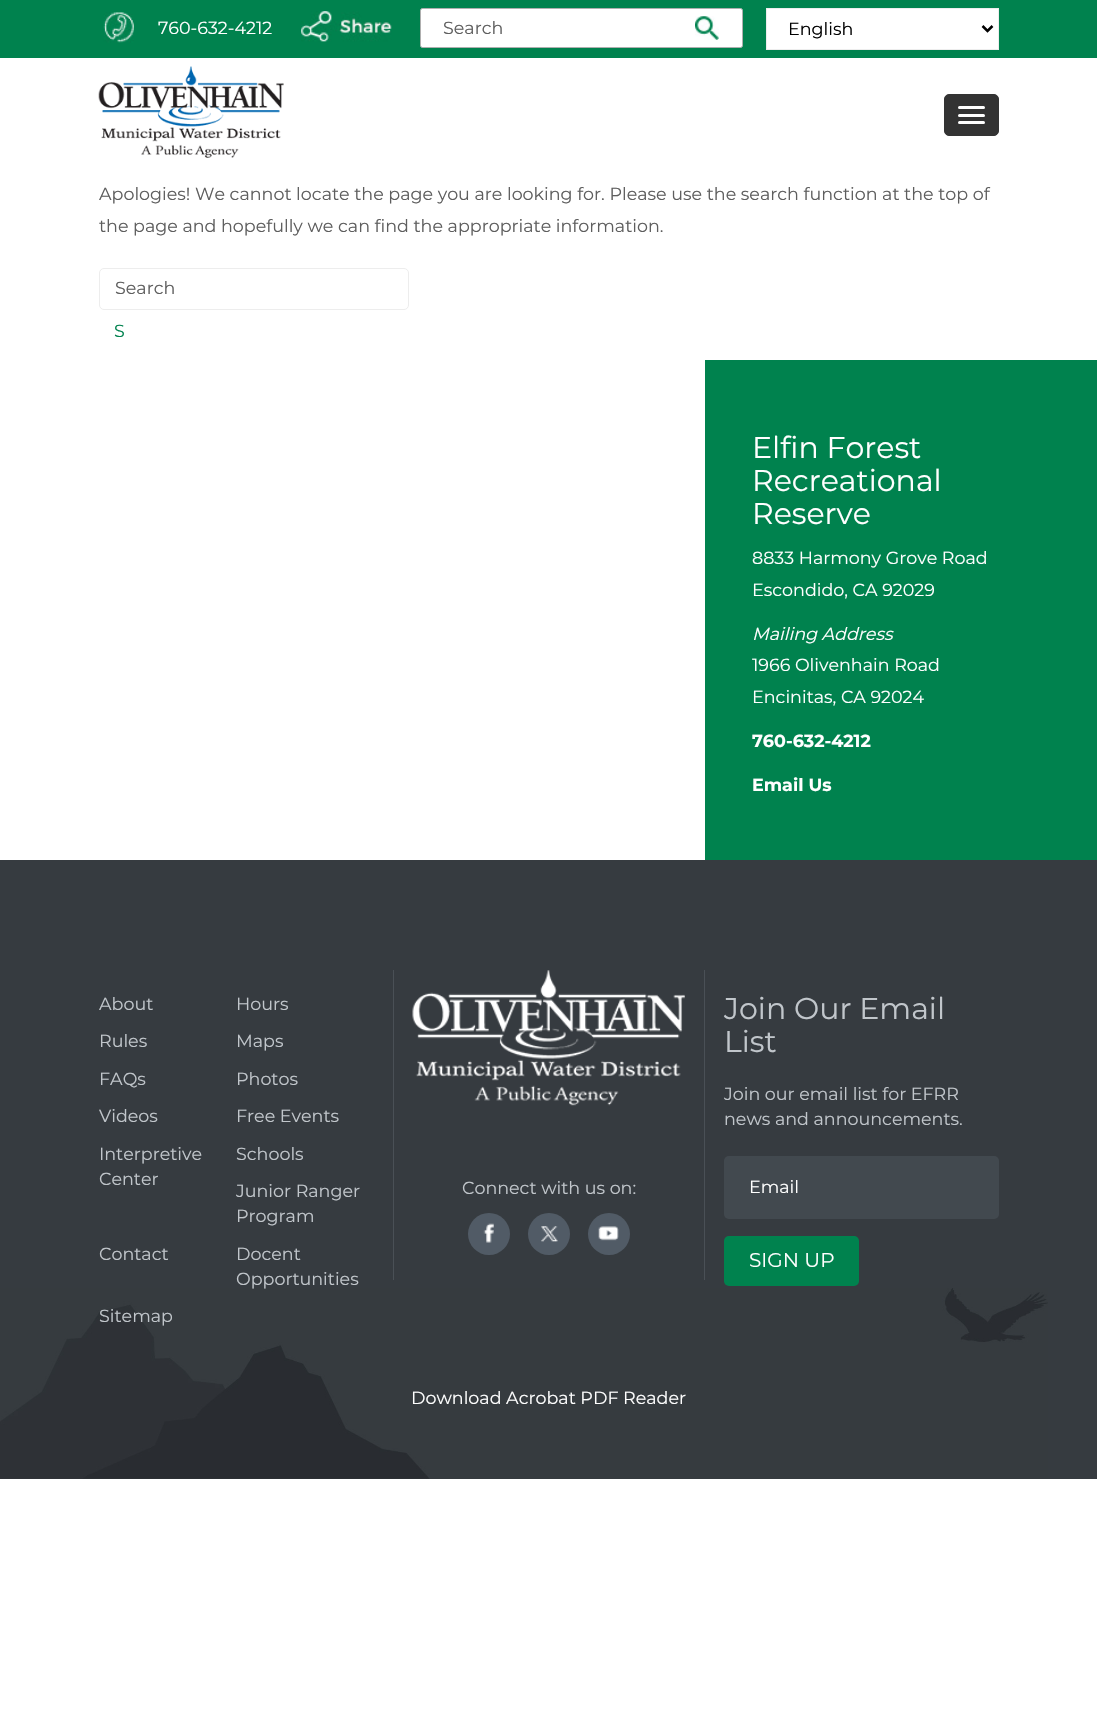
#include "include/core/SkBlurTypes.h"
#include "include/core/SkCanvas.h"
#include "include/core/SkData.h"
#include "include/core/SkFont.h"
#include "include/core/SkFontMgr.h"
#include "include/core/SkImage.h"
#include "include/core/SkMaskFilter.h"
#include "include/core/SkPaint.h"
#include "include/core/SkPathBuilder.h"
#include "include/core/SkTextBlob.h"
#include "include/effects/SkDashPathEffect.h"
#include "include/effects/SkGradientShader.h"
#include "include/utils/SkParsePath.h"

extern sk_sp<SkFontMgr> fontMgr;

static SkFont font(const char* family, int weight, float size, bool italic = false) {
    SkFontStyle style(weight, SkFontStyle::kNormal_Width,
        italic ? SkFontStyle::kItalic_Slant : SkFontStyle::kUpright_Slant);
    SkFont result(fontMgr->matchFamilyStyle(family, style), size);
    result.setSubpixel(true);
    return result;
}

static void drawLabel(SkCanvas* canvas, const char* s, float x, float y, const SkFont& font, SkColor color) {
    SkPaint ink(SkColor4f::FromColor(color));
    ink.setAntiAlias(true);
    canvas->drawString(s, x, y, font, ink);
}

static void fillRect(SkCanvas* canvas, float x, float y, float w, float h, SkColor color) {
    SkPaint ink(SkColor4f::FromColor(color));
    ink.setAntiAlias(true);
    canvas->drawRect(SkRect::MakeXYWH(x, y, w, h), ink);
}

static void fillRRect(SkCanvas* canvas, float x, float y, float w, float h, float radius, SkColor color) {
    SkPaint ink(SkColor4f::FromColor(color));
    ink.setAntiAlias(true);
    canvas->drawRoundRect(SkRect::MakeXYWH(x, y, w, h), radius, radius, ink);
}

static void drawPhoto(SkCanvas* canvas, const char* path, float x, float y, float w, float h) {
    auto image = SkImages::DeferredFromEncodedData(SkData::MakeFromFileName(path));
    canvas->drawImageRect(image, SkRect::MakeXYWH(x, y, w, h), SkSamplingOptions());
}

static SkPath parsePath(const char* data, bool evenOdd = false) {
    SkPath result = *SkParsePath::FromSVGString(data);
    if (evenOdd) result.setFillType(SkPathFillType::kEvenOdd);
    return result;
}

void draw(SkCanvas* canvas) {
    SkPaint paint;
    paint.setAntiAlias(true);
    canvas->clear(0xFFFFFFFF);
    fillRect(canvas, 0, 0, 1097, 58, 0xFF00824E);
    drawPhoto(canvas, "assets/img1.png", 103, 12, 31, 31);
    SkFont font1 = font("Montserrat", 400, 17.5f);
    drawLabel(canvas, "760-632-4212", 158, 34, font1, 0xFFFFFFFF);
    drawPhoto(canvas, "assets/img2.png", 301, 11, 91, 31);
    paint.setColor(0xFFFFFFFF);
    canvas->drawRoundRect(SkRect::MakeXYWH(420.5f, 8.5f, 322, 39), 2, 2, paint);
    paint.setStroke(true);
    paint.setStrokeWidth(1);
    paint.setColor(0xFFAFAFAF);
    canvas->drawRoundRect(SkRect::MakeXYWH(420.5f, 8.5f, 322, 39), 2, 2, paint);
    drawLabel(canvas, "Search", 443, 34, font1, 0xFF5E5E5E);
    drawPhoto(canvas, "assets/img3.png", 695, 16, 24, 24);
    paint.setStroke(false);
    paint.setColor(0xFFFFFFFF);
    canvas->drawRect(SkRect::MakeXYWH(766.5f, 8.5f, 232, 41), paint);
    paint.setStroke(true);
    paint.setColor(0xFFEDEDED);
    canvas->drawRect(SkRect::MakeXYWH(766.5f, 8.5f, 232, 41), paint);
    paint.setStrokeWidth(2.5f);
    paint.setColor(0xFF000000);
    canvas->drawPath(parsePath("M982.5 26L987.5 31L992.5 26"), paint);
    drawLabel(canvas, "English", 788, 35, font1, 0xFF000000);
    drawPhoto(canvas, "assets/img4.png", 98, 66, 186, 92);
    paint.setStroke(false);
    paint.setColor(0xFF333333);
    canvas->drawRoundRect(SkRect::MakeXYWH(944.5f, 94.5f, 54, 41), 4.5f, 4.5f, paint);
    paint.setStroke(true);
    paint.setStrokeWidth(1);
    canvas->drawRoundRect(SkRect::MakeXYWH(944.5f, 94.5f, 54, 41), 4.5f, 4.5f, paint);
    fillRRect(canvas, 958, 106, 27, 3, 1.5f, 0xFFFFFFFF);
    fillRRect(canvas, 958, 114, 27, 3, 1.5f, 0xFFFFFFFF);
    fillRRect(canvas, 958, 121, 27, 3, 1.5f, 0xFFFFFFFF);
    drawLabel(canvas, "Apologies! We cannot locate the page you are looking for. Please use the search function at the top of", 99, 200, font1, 0xFF5E5E5E);
    drawLabel(canvas, "the page and hopefully we can find the appropriate information.", 99, 232, font1, 0xFF5E5E5E);
    paint.setColor(0xFFEDEDED);
    canvas->drawRoundRect(SkRect::MakeXYWH(99.5f, 268.5f, 309, 41), 4.5f, 4.5f, paint);
    drawLabel(canvas, "Search", 115, 294, font1, 0xFF5E5E5E);
    drawLabel(canvas, "S", 114, 337, font1, 0xFF00824E);
    fillRect(canvas, 705, 360, 392, 500, 0xFF00824E);
    SkFont font2 = font("Montserrat", 400, 30);
    drawLabel(canvas, "Elfin Forest", 752, 458, font2, 0xFFFFFFFF);
    drawLabel(canvas, "Recreational", 752, 491, font2, 0xFFFFFFFF);
    drawLabel(canvas, "Reserve", 752, 524, font2, 0xFFFFFFFF);
    drawLabel(canvas, "8833 Harmony Grove Road", 752, 564, font1, 0xFFFFFFFF);
    drawLabel(canvas, "Escondido, CA 92029", 752, 596, font1, 0xFFFFFFFF);
    SkFont font3 = font("Montserrat", 400, 17.5f, true);
    drawLabel(canvas, "Mailing Address", 752, 640, font3, 0xFFFFFFFF);
    drawLabel(canvas, "1966 Olivenhain Road", 752, 671, font1, 0xFFFFFFFF);
    drawLabel(canvas, "Encinitas, CA 92024", 752, 703, font1, 0xFFFFFFFF);
    SkFont font4 = font("Montserrat", 700, 17.5f);
    drawLabel(canvas, "760-632-4212", 752, 747, font4, 0xFFFFFFFF);
    drawLabel(canvas, "Email Us", 752, 791, font4, 0xFFFFFFFF);
    fillRect(canvas, 0, 860, 1097, 619, 0xFF363B40);
    drawPhoto(canvas, "assets/img5.png", 0, 1288, 1048, 191);
    drawLabel(canvas, "About", 99, 1010, font1, 0xFFC1C6CB);
    drawLabel(canvas, "Hours", 236, 1010, font1, 0xFFC1C6CB);
    drawLabel(canvas, "Rules", 99, 1047, font1, 0xFFC1C6CB);
    drawLabel(canvas, "Maps", 236, 1047, font1, 0xFFC1C6CB);
    drawLabel(canvas, "FAQs", 99, 1085, font1, 0xFFC1C6CB);
    drawLabel(canvas, "Photos", 236, 1085, font1, 0xFFC1C6CB);
    drawLabel(canvas, "Videos", 99, 1122, font1, 0xFFC1C6CB);
    drawLabel(canvas, "Free Events", 236, 1122, font1, 0xFFC1C6CB);
    drawLabel(canvas, "Interpretive", 99, 1160, font1, 0xFFC1C6CB);
    drawLabel(canvas, "Center", 99, 1185, font1, 0xFFC1C6CB);
    drawLabel(canvas, "Schools", 236, 1160, font1, 0xFFC1C6CB);
    drawLabel(canvas, "Junior Ranger", 236, 1197, font1, 0xFFC1C6CB);
    drawLabel(canvas, "Program", 236, 1222, font1, 0xFFC1C6CB);
    drawLabel(canvas, "Contact", 99, 1260, font1, 0xFFC1C6CB);
    drawLabel(canvas, "Docent", 236, 1260, font1, 0xFFC1C6CB);
    drawLabel(canvas, "Opportunities", 236, 1285, font1, 0xFFC1C6CB);
    drawLabel(canvas, "Sitemap", 99, 1322, font1, 0xFFC1C6CB);
    fillRect(canvas, 704, 970, 1, 310, 0xFF4A5056);
    fillRect(canvas, 393, 970, 1, 310, 0xFF4A5056);
    drawPhoto(canvas, "assets/img6.png", 412, 970, 273, 136);
    drawLabel(canvas, "Connect with us on:", 462, 1194, font1, 0xFFC1C6CB);
    paint.setStroke(false);
    paint.setColor(0xFF515B66);
    canvas->drawCircle(489, 1234, 21, paint);
    drawPhoto(canvas, "assets/img7.png", 483, 1223, 11, 20);
    canvas->drawCircle(549, 1234, 21, paint);
    drawPhoto(canvas, "assets/img8.png", 541, 1226, 17, 16);
    canvas->drawCircle(609, 1234, 21, paint);
    drawPhoto(canvas, "assets/img9.png", 598, 1226, 21, 15);
    drawLabel(canvas, "Join Our Email", 724, 1019, font2, 0xFFC1C6CB);
    drawLabel(canvas, "List", 724, 1052, font2, 0xFFC1C6CB);
    drawLabel(canvas, "Join our email list for EFRR", 724, 1100, font1, 0xFFC1C6CB);
    drawLabel(canvas, "news and announcements.", 724, 1125, font1, 0xFFC1C6CB);
    fillRRect(canvas, 724, 1156, 275, 63, 5, 0xFF42494F);
    drawLabel(canvas, "Email", 749, 1193, font1, 0xFFFFFFFF);
    fillRRect(canvas, 724, 1236, 135, 50, 5, 0xFF00824E);
    SkFont font5 = font("Montserrat", 400, 20);
    drawLabel(canvas, "SIGN UP", 749, 1267, font5, 0xFFFFFFFF);
    drawLabel(canvas, "Download Acrobat PDF Reader", 411, 1404, font1, 0xFFFFFFFF);
}
